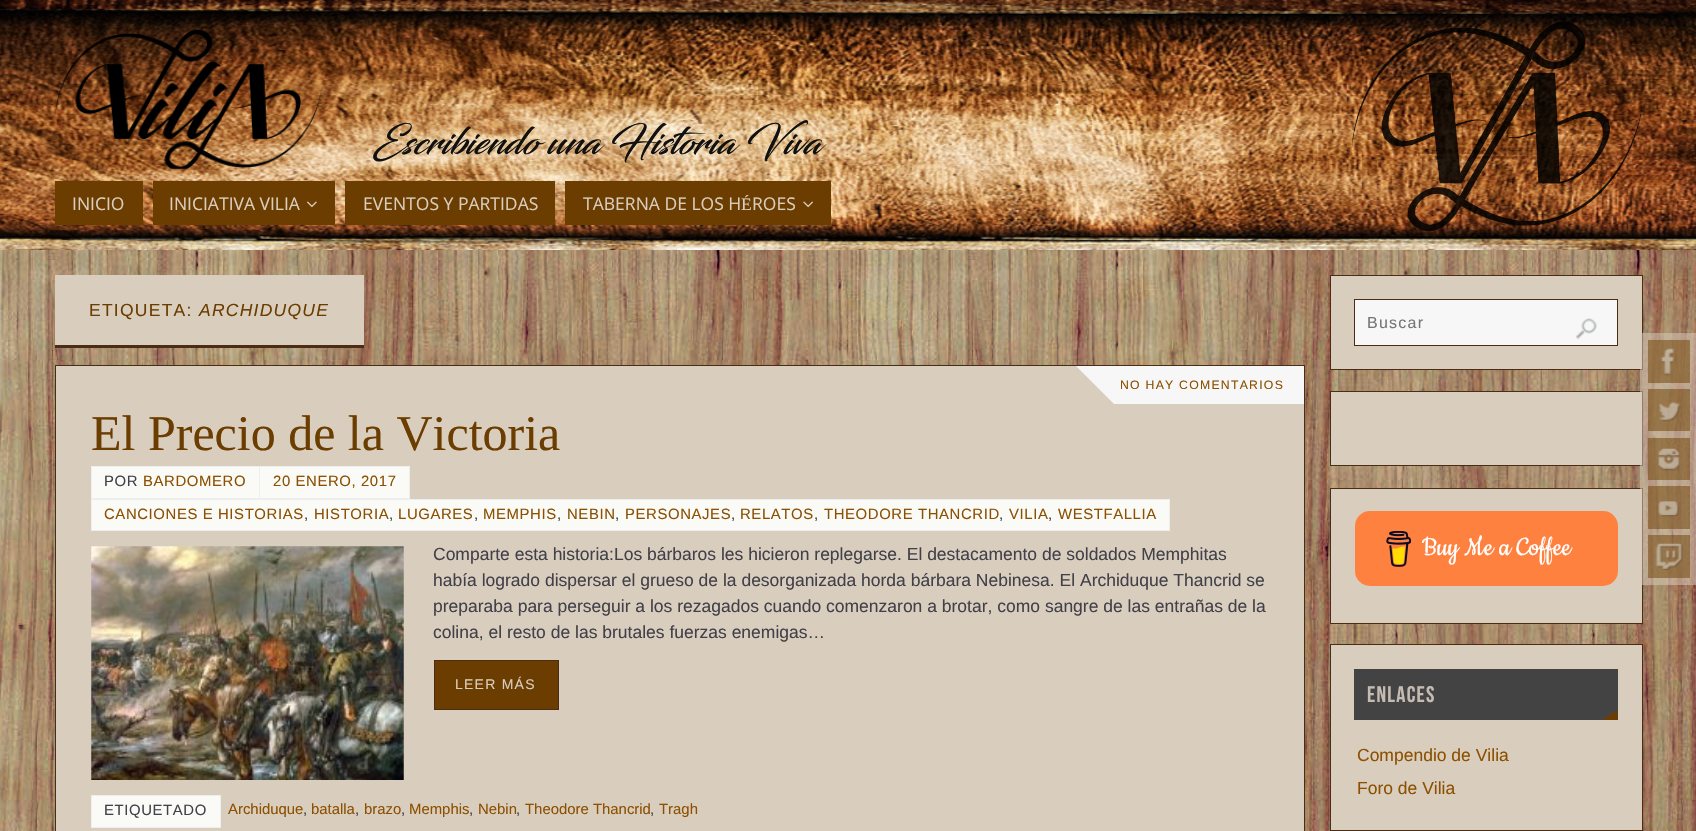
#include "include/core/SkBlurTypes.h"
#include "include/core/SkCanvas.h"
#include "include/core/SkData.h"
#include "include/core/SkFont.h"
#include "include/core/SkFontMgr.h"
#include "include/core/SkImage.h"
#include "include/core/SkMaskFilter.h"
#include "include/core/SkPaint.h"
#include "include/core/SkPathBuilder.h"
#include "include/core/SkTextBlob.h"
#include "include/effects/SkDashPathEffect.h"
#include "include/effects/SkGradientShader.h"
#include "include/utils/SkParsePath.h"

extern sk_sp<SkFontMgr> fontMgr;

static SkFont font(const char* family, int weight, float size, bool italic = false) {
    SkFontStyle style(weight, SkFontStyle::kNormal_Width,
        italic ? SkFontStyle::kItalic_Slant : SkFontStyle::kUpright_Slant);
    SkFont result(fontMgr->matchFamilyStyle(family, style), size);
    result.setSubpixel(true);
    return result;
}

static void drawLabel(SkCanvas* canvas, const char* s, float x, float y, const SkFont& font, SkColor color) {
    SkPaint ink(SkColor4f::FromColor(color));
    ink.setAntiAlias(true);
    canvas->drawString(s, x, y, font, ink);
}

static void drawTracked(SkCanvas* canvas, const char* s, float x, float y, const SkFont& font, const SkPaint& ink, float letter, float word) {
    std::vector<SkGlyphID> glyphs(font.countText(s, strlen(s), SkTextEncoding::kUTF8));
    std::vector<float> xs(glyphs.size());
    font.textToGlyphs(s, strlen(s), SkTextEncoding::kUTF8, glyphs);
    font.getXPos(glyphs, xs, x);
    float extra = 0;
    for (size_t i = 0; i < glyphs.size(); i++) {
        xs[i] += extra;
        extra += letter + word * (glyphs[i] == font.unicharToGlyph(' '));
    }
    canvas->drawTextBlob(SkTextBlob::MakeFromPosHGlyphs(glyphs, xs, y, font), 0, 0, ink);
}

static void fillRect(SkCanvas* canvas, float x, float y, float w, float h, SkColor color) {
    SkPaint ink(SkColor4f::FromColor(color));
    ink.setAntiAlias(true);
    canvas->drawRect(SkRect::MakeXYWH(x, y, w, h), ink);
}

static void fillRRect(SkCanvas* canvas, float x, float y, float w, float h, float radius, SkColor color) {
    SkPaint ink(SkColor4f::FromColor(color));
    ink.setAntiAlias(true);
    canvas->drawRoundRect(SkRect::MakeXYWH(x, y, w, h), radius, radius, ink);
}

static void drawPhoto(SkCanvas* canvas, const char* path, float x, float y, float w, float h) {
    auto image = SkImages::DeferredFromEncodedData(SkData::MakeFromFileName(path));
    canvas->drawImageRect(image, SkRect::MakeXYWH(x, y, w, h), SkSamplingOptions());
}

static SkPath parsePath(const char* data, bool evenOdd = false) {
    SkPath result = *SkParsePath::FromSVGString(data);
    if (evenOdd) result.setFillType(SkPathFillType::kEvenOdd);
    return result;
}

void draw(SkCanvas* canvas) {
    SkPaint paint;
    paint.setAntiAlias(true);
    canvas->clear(0xFFFFFFFF);
    drawPhoto(canvas, "assets/img1.png", 0, 250, 1696, 581);
    drawPhoto(canvas, "assets/img2.png", 0, 0, 1696, 250);
    drawPhoto(canvas, "assets/img3.png", 55, 28, 268, 141);
    SkFont font1 = font("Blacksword", 900, 37.5f);
    drawLabel(canvas, "Escribiendo una Historia Viva", 373, 154, font1, 0xFF111111);
    drawPhoto(canvas, "assets/img4.png", 1351, 21, 291, 211);
    fillRect(canvas, 55, 181, 88, 44, 0xFF6C3D00);
    SkFont font2 = font("Open Sans", 400, 17.5f);
    drawLabel(canvas, "INICIO", 72, 210, font2, 0xFFD9CDBE);
    fillRect(canvas, 153, 181, 182, 44, 0xFF6C3D00);
    drawLabel(canvas, "INICIATIVA VILIA", 169, 210, font2, 0xFFD9CDBE);
    drawPhoto(canvas, "assets/img5.png", 307, 201, 10, 7);
    fillRect(canvas, 345, 181, 210, 44, 0xFF6C3D00);
    drawLabel(canvas, "EVENTOS Y PARTIDAS", 363, 210, font2, 0xFFD9CDBE);
    fillRect(canvas, 565, 181, 266, 44, 0xFF6C3D00);
    drawLabel(canvas, "TABERNA DE LOS H", 583, 210, font2, 0xFFD9CDBE);
    SkFont font3 = font("Liberation Serif", 400, 17.5f);
    drawLabel(canvas, "É", 741, 210, font3, 0xFFD9CDBE);
    drawLabel(canvas, "ROES", 752, 210, font2, 0xFFD9CDBE);
    drawPhoto(canvas, "assets/img6.png", 803, 201, 10, 7);
    fillRect(canvas, 55, 275, 309, 70, 0xFFD9CDBE);
    fillRect(canvas, 55, 345, 309, 3, 0xFF4B2C15);
    SkFont font4 = font("Liberation Sans", 400, 17.5f);
    paint.setColor(0xFF6C3D00);
    drawTracked(canvas, "ETIQUETA:", 89, 316, font4, paint, 1.25f, 0);
    SkFont font5 = font("Liberation Sans", 400, 17.5f, true);
    drawTracked(canvas, "ARCHIDUQUE", 199, 316, font5, paint, 1.25f, 0);
    paint.setColor(0xFFD9CDBE);
    canvas->drawRect(SkRect::MakeXYWH(55.5f, 365.5f, 1249, 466), paint);
    paint.setStroke(true);
    paint.setStrokeWidth(1);
    paint.setColor(0xFF4B2C15);
    canvas->drawRect(SkRect::MakeXYWH(55.5f, 365.5f, 1249, 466), paint);
    fillRect(canvas, 1114, 366, 190, 38, 0xFFF7F7F7);
    paint.setStroke(false);
    paint.setColor(0xFFF7F7F7);
    canvas->drawPath(parsePath("M1076 366H1114V404Z"), paint);
    SkFont font6 = font("Liberation Sans", 400, 12.25f);
    paint.setColor(0xFF8D5001);
    drawTracked(canvas, "NO HAY COMENTARIOS", 1120, 389, font6, paint, 1.25f, 0);
    SkFont font7 = font("Liberation Serif", 400, 50);
    drawLabel(canvas, "El Precio de la Victoria", 91, 450, font7, 0xFF6C3D00);
    paint.setColor(0xFFFAFAF7);
    canvas->drawRect(SkRect::MakeXYWH(91.5f, 466.5f, 168, 32), paint);
    paint.setStroke(true);
    paint.setColor(0xFFEEEEEE);
    canvas->drawRect(SkRect::MakeXYWH(91.5f, 466.5f, 168, 32), paint);
    SkFont font8 = font("Liberation Sans", 400, 14.9f);
    paint.setStroke(false);
    paint.setColor(0xFF424149);
    drawTracked(canvas, "POR", 104, 486, font8, paint, 0.6f, 0);
    paint.setColor(0xFF8D5001);
    drawTracked(canvas, "BARDOMERO", 143, 486, font8, paint, 0.6f, 0);
    paint.setColor(0xFFFAFAF7);
    canvas->drawRect(SkRect::MakeXYWH(259.5f, 466.5f, 150, 32), paint);
    paint.setStroke(true);
    paint.setColor(0xFFEEEEEE);
    canvas->drawRect(SkRect::MakeXYWH(259.5f, 466.5f, 150, 32), paint);
    paint.setStroke(false);
    paint.setColor(0xFF8D5001);
    drawTracked(canvas, "20 ENERO, 2017", 273, 486, font8, paint, 0.6f, 0);
    paint.setColor(0xFFFAFAF7);
    canvas->drawRect(SkRect::MakeXYWH(91.5f, 499.5f, 1078, 31), paint);
    paint.setStroke(true);
    paint.setColor(0xFFEEEEEE);
    canvas->drawRect(SkRect::MakeXYWH(91.5f, 499.5f, 1078, 31), paint);
    paint.setStroke(false);
    paint.setColor(0xFF8D5001);
    drawTracked(canvas, "CANCIONES E HISTORIAS", 104, 519, font8, paint, 0.6f, 0);
    paint.setColor(0xFF424149);
    drawTracked(canvas, ",", 304, 519, font8, paint, 0.6f, 0);
    paint.setColor(0xFF8D5001);
    drawTracked(canvas, "HISTORIA", 314, 519, font8, paint, 0.6f, 0);
    paint.setColor(0xFF424149);
    drawTracked(canvas, ",", 389, 519, font8, paint, 0.6f, 0);
    paint.setColor(0xFF8D5001);
    drawTracked(canvas, "LUGARES", 398, 519, font8, paint, 0.6f, 0);
    paint.setColor(0xFF424149);
    drawTracked(canvas, ",", 474, 519, font8, paint, 0.6f, 0);
    paint.setColor(0xFF8D5001);
    drawTracked(canvas, "MEMPHIS", 483, 519, font8, paint, 0.6f, 0);
    paint.setColor(0xFF424149);
    drawTracked(canvas, ",", 557, 519, font8, paint, 0.6f, 0);
    paint.setColor(0xFF8D5001);
    drawTracked(canvas, "NEBIN", 567, 519, font8, paint, 0.6f, 0);
    paint.setColor(0xFF424149);
    drawTracked(canvas, ",", 615, 519, font8, paint, 0.6f, 0);
    paint.setColor(0xFF8D5001);
    drawTracked(canvas, "PERSONAJES", 625, 519, font8, paint, 0.6f, 0);
    paint.setColor(0xFF424149);
    drawTracked(canvas, ",", 731, 519, font8, paint, 0.6f, 0);
    paint.setColor(0xFF8D5001);
    drawTracked(canvas, "RELATOS", 740, 519, font8, paint, 0.6f, 0);
    paint.setColor(0xFF424149);
    drawTracked(canvas, ",", 814, 519, font8, paint, 0.6f, 0);
    paint.setColor(0xFF8D5001);
    drawTracked(canvas, "THEODORE THANCRID", 824, 519, font8, paint, 0.6f, 0);
    paint.setColor(0xFF424149);
    drawTracked(canvas, ",", 999, 519, font8, paint, 0.6f, 0);
    paint.setColor(0xFF8D5001);
    drawTracked(canvas, "VILIA", 1009, 519, font8, paint, 0.6f, 0);
    paint.setColor(0xFF424149);
    drawTracked(canvas, ",", 1048, 519, font8, paint, 0.6f, 0);
    paint.setColor(0xFF8D5001);
    drawTracked(canvas, "WESTFALLIA", 1058, 519, font8, paint, 0.6f, 0);
    drawPhoto(canvas, "assets/img7.png", 91, 546, 313, 234);
    drawLabel(canvas, "Comparte esta historia:Los bárbaros les hicieron replegarse. El destacamento de soldados Memphitas", 433, 560, font4, 0xFF424149);
    drawLabel(canvas, "había logrado dispersar el grueso de la desorganizada horda bárbara Nebinesa. El Archiduque Thancrid se", 433, 586, font4, 0xFF424149);
    drawLabel(canvas, "preparaba para perseguir a los rezagados cuando comenzaron a brotar, como sangre de las entrañas de la", 433, 612, font4, 0xFF424149);
    drawLabel(canvas, "colina, el resto de las brutales fuerzas enemigas…", 433, 638, font4, 0xFF424149);
    paint.setColor(0xFF6C3D00);
    canvas->drawRect(SkRect::MakeXYWH(434.5f, 660.5f, 124, 49), paint);
    paint.setStroke(true);
    paint.setColor(0xFF4B2C15);
    canvas->drawRect(SkRect::MakeXYWH(434.5f, 660.5f, 124, 49), paint);
    SkFont font9 = font("Liberation Sans", 400, 14);
    paint.setStroke(false);
    paint.setColor(0xFFD9CDBE);
    drawTracked(canvas, "LEER MÁS", 455, 689, font9, paint, 1.25f, 0);
    paint.setColor(0xFFFAFAF7);
    canvas->drawRect(SkRect::MakeXYWH(91.5f, 795.5f, 129, 32), paint);
    paint.setStroke(true);
    paint.setColor(0xFFEEEEEE);
    canvas->drawRect(SkRect::MakeXYWH(91.5f, 795.5f, 129, 32), paint);
    paint.setStroke(false);
    paint.setColor(0xFF424149);
    drawTracked(canvas, "ETIQUETADO", 104, 815, font8, paint, 0.6f, 0);
    drawLabel(canvas, "Archiduque", 228, 814, font8, 0xFF8D5001);
    drawLabel(canvas, ",", 303, 814, font8, 0xFF424149);
    drawLabel(canvas, "batalla", 311, 814, font8, 0xFF8D5001);
    drawLabel(canvas, ",", 355, 814, font8, 0xFF424149);
    drawLabel(canvas, "brazo", 364, 814, font8, 0xFF8D5001);
    drawLabel(canvas, ",", 401, 814, font8, 0xFF424149);
    drawLabel(canvas, "Memphis", 409, 814, font8, 0xFF8D5001);
    drawLabel(canvas, ",", 469, 814, font8, 0xFF424149);
    drawLabel(canvas, "Nebin", 478, 814, font8, 0xFF8D5001);
    drawLabel(canvas, ",", 516, 814, font8, 0xFF424149);
    drawLabel(canvas, "Theodore Thancrid", 525, 814, font8, 0xFF8D5001);
    drawLabel(canvas, ",", 650, 814, font8, 0xFF424149);
    drawLabel(canvas, "Tragh", 659, 814, font8, 0xFF8D5001);
    paint.setColor(0xFFD9CDBE);
    canvas->drawRect(SkRect::MakeXYWH(1330.5f, 275.5f, 312, 94), paint);
    paint.setStroke(true);
    paint.setColor(0xFF4B2C15);
    canvas->drawRect(SkRect::MakeXYWH(1330.5f, 275.5f, 312, 94), paint);
    paint.setStroke(false);
    paint.setColor(0xFFF7F7F7);
    canvas->drawRect(SkRect::MakeXYWH(1354.5f, 299.5f, 263, 46), paint);
    paint.setStroke(true);
    paint.setColor(0xFF4B2C15);
    canvas->drawRect(SkRect::MakeXYWH(1354.5f, 299.5f, 263, 46), paint);
    SkFont font10 = font("Liberation Sans", 400, 16);
    paint.setStroke(false);
    paint.setColor(0xFF757575);
    drawTracked(canvas, "Buscar", 1367, 328, font10, paint, 1.25f, 0);
    drawPhoto(canvas, "assets/img8.png", 1576, 318, 21, 21);
    paint.setColor(0xFFD9CDBE);
    canvas->drawRect(SkRect::MakeXYWH(1330.5f, 391.5f, 312, 74), paint);
    paint.setStroke(true);
    paint.setColor(0xFF4B2C15);
    canvas->drawRect(SkRect::MakeXYWH(1330.5f, 391.5f, 312, 74), paint);
    paint.setStroke(false);
    paint.setColor(0xFFD9CDBE);
    canvas->drawRect(SkRect::MakeXYWH(1330.5f, 488.5f, 312, 135), paint);
    paint.setStroke(true);
    paint.setColor(0xFF4B2C15);
    canvas->drawRect(SkRect::MakeXYWH(1330.5f, 488.5f, 312, 135), paint);
    fillRRect(canvas, 1355, 511, 263, 75, 15, 0xFFFF813F);
    drawPhoto(canvas, "assets/img9.png", 1386, 531, 25, 36);
    SkFont font11 = font("Cookie", 400, 30);
    drawLabel(canvas, "Buy Me a Coffee", 1422, 555, font11, 0xFFFFFFFF);
    paint.setStroke(false);
    paint.setColor(0xFFD9CDBE);
    canvas->drawRect(SkRect::MakeXYWH(1330.5f, 644.5f, 312, 186), paint);
    paint.setStroke(true);
    paint.setColor(0xFF4B2C15);
    canvas->drawRect(SkRect::MakeXYWH(1330.5f, 644.5f, 312, 186), paint);
    fillRect(canvas, 1354, 669, 264, 51, 0xFF434343);
    SkFont font12 = font("Bebas Neue", 400, 22.5f);
    paint.setStroke(false);
    paint.setColor(0xFFC5BBB2);
    drawTracked(canvas, "ENLACES", 1367, 702, font12, paint, 1.25f, 0);
    paint.setColor(0xFF6C3D00);
    canvas->drawPath(parsePath("M1617.5 720H1602.5L1617.5 710Z"), paint);
    drawLabel(canvas, "Compendio de Vilia", 1357, 761, font4, 0xFF8D5001);
    drawLabel(canvas, "Foro de Vilia", 1357, 794, font4, 0xFF8D5001);
    fillRect(canvas, 1640, 333, 56, 252, 0x80D9CDBE);
    fillRect(canvas, 1648, 340, 42, 43, 0x806C3D00);
    drawPhoto(canvas, "assets/img10.png", 1660, 348, 15, 28);
    fillRect(canvas, 1648, 389, 42, 42, 0x806C3D00);
    drawPhoto(canvas, "assets/img11.png", 1659, 402, 22, 20);
    fillRect(canvas, 1648, 438, 42, 42, 0x806C3D00);
    drawPhoto(canvas, "assets/img12.png", 1658, 448, 22, 23);
    fillRect(canvas, 1648, 486, 42, 43, 0x806C3D00);
    drawPhoto(canvas, "assets/img13.png", 1658, 501, 21, 16);
    fillRect(canvas, 1648, 535, 42, 43, 0x806C3D00);
    drawPhoto(canvas, "assets/img14.png", 1655, 543, 28, 27);
}
